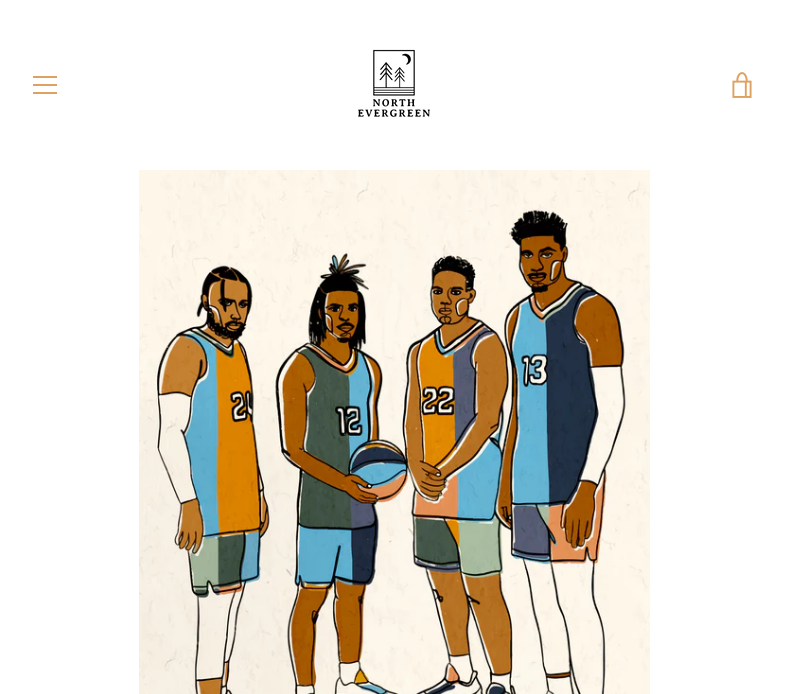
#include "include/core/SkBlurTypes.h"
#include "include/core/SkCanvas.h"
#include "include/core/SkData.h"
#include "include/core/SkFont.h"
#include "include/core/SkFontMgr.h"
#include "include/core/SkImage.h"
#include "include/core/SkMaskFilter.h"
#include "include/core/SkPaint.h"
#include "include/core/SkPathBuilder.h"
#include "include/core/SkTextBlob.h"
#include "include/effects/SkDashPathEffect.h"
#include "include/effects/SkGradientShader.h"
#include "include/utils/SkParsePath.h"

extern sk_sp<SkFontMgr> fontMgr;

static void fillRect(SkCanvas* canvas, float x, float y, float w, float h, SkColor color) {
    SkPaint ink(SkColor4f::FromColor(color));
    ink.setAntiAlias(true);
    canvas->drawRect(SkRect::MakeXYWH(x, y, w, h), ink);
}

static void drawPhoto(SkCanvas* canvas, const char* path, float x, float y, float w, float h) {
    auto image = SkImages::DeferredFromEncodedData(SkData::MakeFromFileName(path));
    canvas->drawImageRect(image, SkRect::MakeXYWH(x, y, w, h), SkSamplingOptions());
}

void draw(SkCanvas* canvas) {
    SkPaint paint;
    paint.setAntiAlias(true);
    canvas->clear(0xFFFFFFFF);
    fillRect(canvas, 33, 76, 24, 2, 0xFFDFA160);
    fillRect(canvas, 33, 84, 24, 2, 0xFFDFA160);
    fillRect(canvas, 33, 92, 24, 2, 0xFFDFA160);
    drawPhoto(canvas, "assets/img1.png", 358, 49, 72, 68);
    drawPhoto(canvas, "assets/img2.png", 732, 72, 20, 26);
    drawPhoto(canvas, "assets/img3.png", 139, 170, 511, 524);
}
